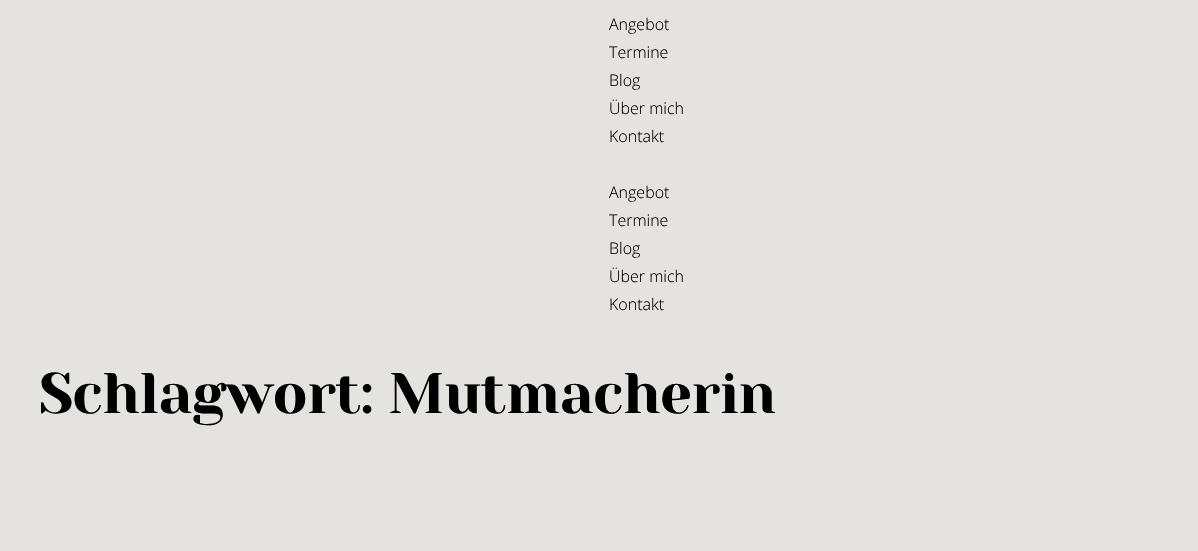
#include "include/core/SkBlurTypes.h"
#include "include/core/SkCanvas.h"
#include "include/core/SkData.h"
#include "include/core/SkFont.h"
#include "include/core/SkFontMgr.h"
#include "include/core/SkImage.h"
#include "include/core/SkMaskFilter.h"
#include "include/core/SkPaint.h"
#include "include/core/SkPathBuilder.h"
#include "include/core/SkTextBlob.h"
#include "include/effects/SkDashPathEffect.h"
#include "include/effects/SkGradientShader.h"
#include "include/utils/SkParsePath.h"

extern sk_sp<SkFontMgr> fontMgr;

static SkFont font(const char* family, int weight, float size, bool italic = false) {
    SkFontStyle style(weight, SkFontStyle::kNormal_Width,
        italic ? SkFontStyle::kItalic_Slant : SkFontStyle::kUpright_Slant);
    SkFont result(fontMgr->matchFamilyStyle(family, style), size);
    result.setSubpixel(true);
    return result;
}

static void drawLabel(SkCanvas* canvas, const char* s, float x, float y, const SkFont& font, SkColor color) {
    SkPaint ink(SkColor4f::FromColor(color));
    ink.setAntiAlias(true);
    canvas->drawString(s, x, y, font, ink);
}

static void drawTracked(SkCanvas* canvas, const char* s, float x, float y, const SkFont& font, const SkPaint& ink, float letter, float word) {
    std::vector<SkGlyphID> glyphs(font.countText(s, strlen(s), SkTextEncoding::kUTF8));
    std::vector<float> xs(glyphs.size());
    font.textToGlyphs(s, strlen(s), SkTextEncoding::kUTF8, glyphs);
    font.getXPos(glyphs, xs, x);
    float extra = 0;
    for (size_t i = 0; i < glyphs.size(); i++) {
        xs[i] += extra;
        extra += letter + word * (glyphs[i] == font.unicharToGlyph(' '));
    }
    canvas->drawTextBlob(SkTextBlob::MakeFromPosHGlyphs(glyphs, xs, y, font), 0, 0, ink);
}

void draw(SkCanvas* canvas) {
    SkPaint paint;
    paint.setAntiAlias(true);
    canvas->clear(0xFFE5E3DF);
    SkFont font1 = font("Open Sans", 300, 16);
    drawLabel(canvas, "Angebot", 609, 30, font1, 0xFF000000);
    drawLabel(canvas, "Termine", 609, 58, font1, 0xFF000000);
    drawLabel(canvas, "Blog", 609, 86, font1, 0xFF000000);
    drawLabel(canvas, "Über mich", 609, 114, font1, 0xFF000000);
    drawLabel(canvas, "Kontakt", 609, 142, font1, 0xFF000000);
    drawLabel(canvas, "Angebot", 609, 198, font1, 0xFF000000);
    drawLabel(canvas, "Termine", 609, 226, font1, 0xFF000000);
    drawLabel(canvas, "Blog", 609, 254, font1, 0xFF000000);
    drawLabel(canvas, "Über mich", 609, 282, font1, 0xFF000000);
    drawLabel(canvas, "Kontakt", 609, 310, font1, 0xFF000000);
    SkFont font2 = font("Yeseva One", 400, 57);
    paint.setColor(0xFF000000);
    drawTracked(canvas, "Schlagwort: Mutmacherin", 39, 413, font2, paint, -0.6f, 0);
}
